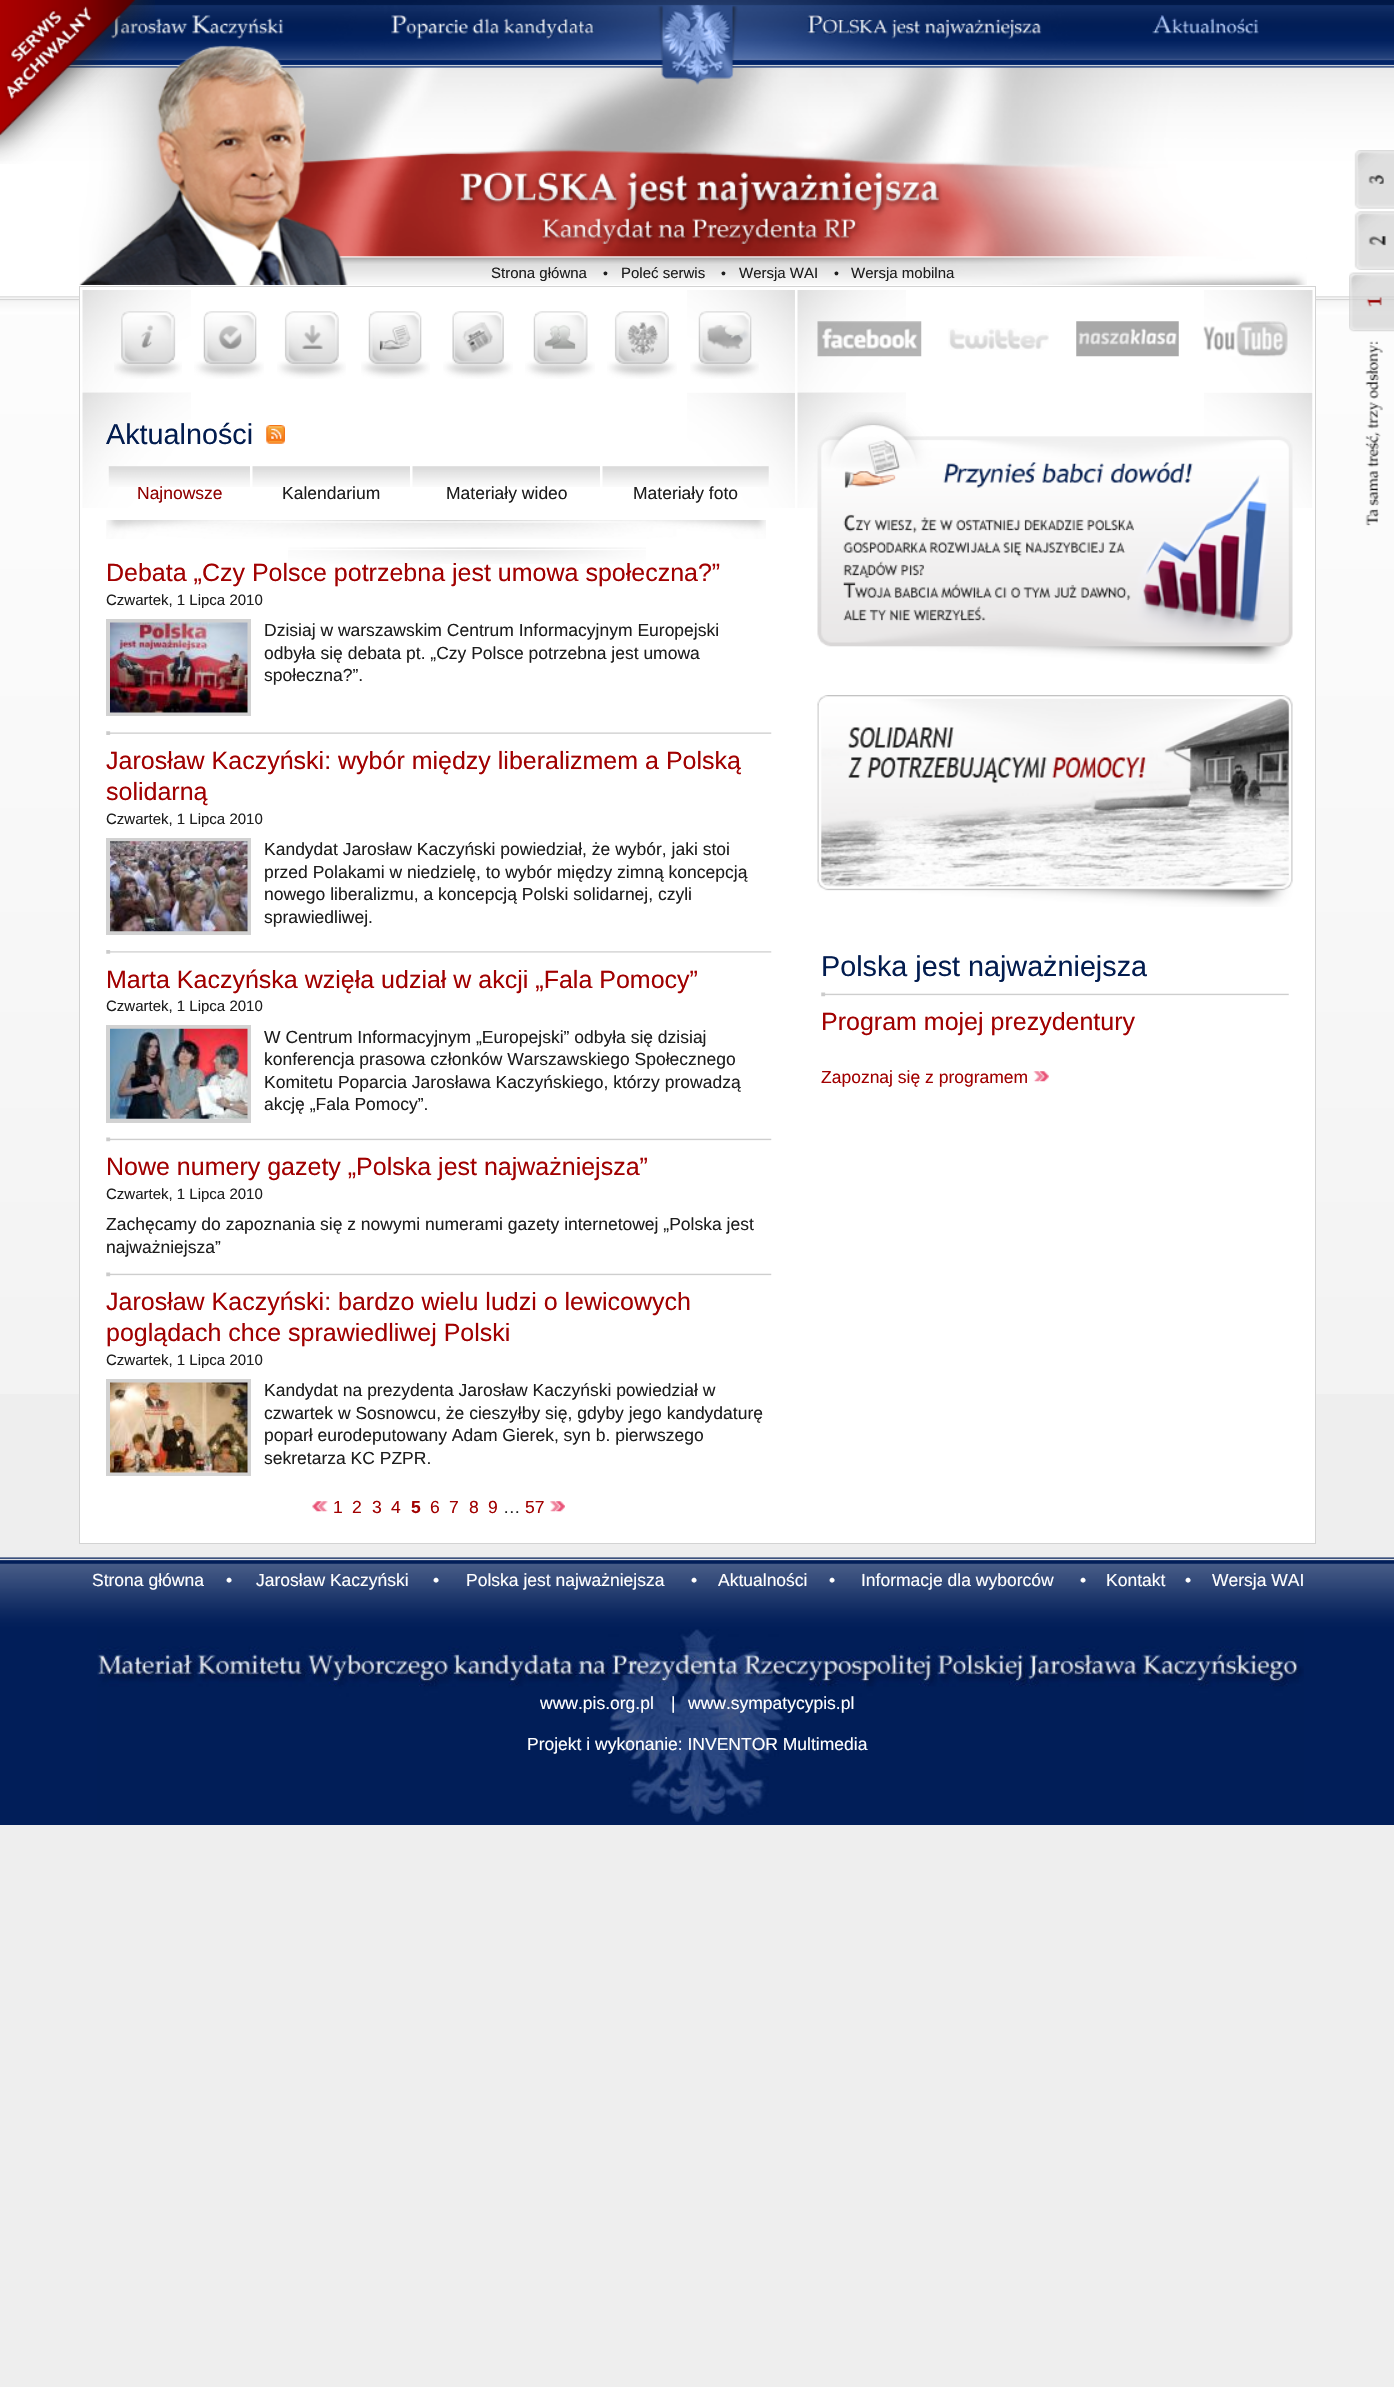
#include "include/core/SkBlurTypes.h"
#include "include/core/SkCanvas.h"
#include "include/core/SkData.h"
#include "include/core/SkFont.h"
#include "include/core/SkFontMgr.h"
#include "include/core/SkImage.h"
#include "include/core/SkMaskFilter.h"
#include "include/core/SkPaint.h"
#include "include/core/SkPathBuilder.h"
#include "include/core/SkTextBlob.h"
#include "include/effects/SkDashPathEffect.h"
#include "include/effects/SkGradientShader.h"
#include "include/utils/SkParsePath.h"

extern sk_sp<SkFontMgr> fontMgr;

static SkFont font(const char* family, int weight, float size, bool italic = false) {
    SkFontStyle style(weight, SkFontStyle::kNormal_Width,
        italic ? SkFontStyle::kItalic_Slant : SkFontStyle::kUpright_Slant);
    SkFont result(fontMgr->matchFamilyStyle(family, style), size);
    result.setSubpixel(true);
    return result;
}

static void drawLabel(SkCanvas* canvas, const char* s, float x, float y, const SkFont& font, SkColor color) {
    SkPaint ink(SkColor4f::FromColor(color));
    ink.setAntiAlias(true);
    canvas->drawString(s, x, y, font, ink);
}

static void fillRect(SkCanvas* canvas, float x, float y, float w, float h, SkColor color) {
    SkPaint ink(SkColor4f::FromColor(color));
    ink.setAntiAlias(true);
    canvas->drawRect(SkRect::MakeXYWH(x, y, w, h), ink);
}

static void drawPhoto(SkCanvas* canvas, const char* path, float x, float y, float w, float h) {
    auto image = SkImages::DeferredFromEncodedData(SkData::MakeFromFileName(path));
    canvas->drawImageRect(image, SkRect::MakeXYWH(x, y, w, h), SkSamplingOptions());
}

void draw(SkCanvas* canvas) {
    SkPaint paint;
    paint.setAntiAlias(true);
    canvas->clear(0xFFEEEEEE);
    drawPhoto(canvas, "assets/img1.png", 0, 0, 1394, 1394);
    drawPhoto(canvas, "assets/img4.png", 79, 0, 1228, 285);
    drawPhoto(canvas, "assets/img5.png", 111, 15, 173, 24);
    drawPhoto(canvas, "assets/img2.png", 0, 0, 155, 164);
    drawPhoto(canvas, "assets/img3.png", 0, 1557, 1394, 268);
    drawPhoto(canvas, "assets/img6.png", 391, 15, 203, 24);
    drawPhoto(canvas, "assets/img7.png", 807, 15, 235, 24);
    drawPhoto(canvas, "assets/img8.png", 1152, 15, 107, 19);
    SkFont font1 = font("Liberation Sans", 400, 15);
    drawLabel(canvas, "Strona główna", 491, 278, font1, 0xFF1E1E1E);
    SkFont font2 = font("Liberation Sans", 400, 14);
    drawLabel(canvas, "•", 603, 278, font2, 0xFF1E1E1E);
    drawLabel(canvas, "Poleć serwis", 621, 278, font1, 0xFF1E1E1E);
    drawLabel(canvas, "•", 721, 278, font2, 0xFF1E1E1E);
    drawLabel(canvas, "Wersja WAI", 739, 278, font1, 0xFF1E1E1E);
    drawLabel(canvas, "•", 834, 278, font2, 0xFF1E1E1E);
    drawLabel(canvas, "Wersja mobilna", 851, 278, font1, 0xFF1E1E1E);
    fillRect(canvas, 80, 296, 1235, 1247, 0xFFFFFFFF);
    paint.setStroke(true);
    paint.setStrokeWidth(1);
    paint.setColor(0xFFD3D3D3);
    canvas->drawRect(SkRect::MakeXYWH(79.5f, 286.5f, 1236, 1257), paint);
    drawPhoto(canvas, "assets/img9.png", 82, 290, 109, 102);
    drawPhoto(canvas, "assets/img10.png", 687, 290, 108, 102);
    drawPhoto(canvas, "assets/img11.png", 114, 311, 68, 68);
    drawPhoto(canvas, "assets/img12.png", 194, 311, 70, 68);
    drawPhoto(canvas, "assets/img13.png", 277, 311, 69, 68);
    drawPhoto(canvas, "assets/img14.png", 361, 311, 69, 68);
    drawPhoto(canvas, "assets/img15.png", 443, 311, 70, 68);
    drawPhoto(canvas, "assets/img16.png", 525, 311, 70, 68);
    drawPhoto(canvas, "assets/img17.png", 607, 311, 70, 68);
    drawPhoto(canvas, "assets/img18.png", 690, 311, 69, 68);
    drawPhoto(canvas, "assets/img19.png", 1204, 290, 109, 102);
    drawPhoto(canvas, "assets/img9.png", 797, 290, 109, 102);
    drawPhoto(canvas, "assets/img20.png", 817, 321, 105, 36);
    drawPhoto(canvas, "assets/img21.png", 948, 328, 101, 22);
    drawPhoto(canvas, "assets/img22.png", 1076, 321, 103, 36);
    drawPhoto(canvas, "assets/img23.png", 1203, 321, 85, 36);
    drawPhoto(canvas, "assets/img24.png", 82, 392, 109, 116);
    drawPhoto(canvas, "assets/img25.png", 687, 392, 108, 116);
    SkFont font3 = font("Liberation Sans", 400, 28.75f);
    drawLabel(canvas, "Aktualności", 106, 444, font3, 0xFF021C4F);
    drawPhoto(canvas, "assets/img26.png", 266, 425, 19, 19);
    drawPhoto(canvas, "assets/img27.png", 106, 520, 660, 19);
    drawPhoto(canvas, "assets/img28.png", 108, 466, 142, 21);
    SkFont font4 = font("Liberation Sans", 400, 17.5f);
    drawLabel(canvas, "Najnowsze", 137, 499, font4, 0xFF8F0000);
    drawPhoto(canvas, "assets/img29.png", 252, 466, 158, 21);
    drawLabel(canvas, "Kalendarium", 282, 499, font4, 0xFF1E1E1E);
    drawPhoto(canvas, "assets/img30.png", 412, 466, 188, 21);
    drawLabel(canvas, "Materiały wideo", 446, 499, font4, 0xFF1E1E1E);
    drawPhoto(canvas, "assets/img31.png", 602, 466, 167, 21);
    drawLabel(canvas, "Materiały foto", 633, 499, font4, 0xFF1E1E1E);
    drawPhoto(canvas, "assets/img32.png", 288, 547, 358, 17);
    drawPhoto(canvas, "assets/img33.png", 106, 731, 666, 4);
    SkFont font5 = font("Liberation Sans", 400, 25);
    drawLabel(canvas, "Debata „Czy Polsce potrzebna jest umowa społeczna?”", 106, 581, font5, 0xFFA10000);
    drawLabel(canvas, "Czwartek, 1 Lipca 2010", 106, 605, font1, 0xFF1E1E1E);
    paint.setStrokeWidth(4);
    paint.setColor(0xFFD2D2D2);
    canvas->drawRect(SkRect::MakeXYWH(108, 621, 141, 93), paint);
    drawPhoto(canvas, "assets/img34.png", 110, 622, 138, 91);
    drawLabel(canvas, "Dzisiaj w warszawskim Centrum Informacyjnym Europejski", 264, 636, font4, 0xFF1E1E1E);
    drawLabel(canvas, "odbyła się debata pt. „Czy Polsce potrzebna jest umowa", 264, 659, font4, 0xFF1E1E1E);
    drawLabel(canvas, "społeczna?”.", 264, 681, font4, 0xFF1E1E1E);
    drawPhoto(canvas, "assets/img35.png", 106, 950, 666, 4);
    drawLabel(canvas, "Jarosław Kaczyński: wybór między liberalizmem a Polską", 106, 769, font5, 0xFFA10000);
    drawLabel(canvas, "solidarną", 106, 800, font5, 0xFFA10000);
    drawLabel(canvas, "Czwartek, 1 Lipca 2010", 106, 824, font1, 0xFF1E1E1E);
    canvas->drawRect(SkRect::MakeXYWH(108, 840, 141, 93), paint);
    drawPhoto(canvas, "assets/img36.png", 110, 841, 138, 91);
    drawLabel(canvas, "Kandydat Jarosław Kaczyński powiedział, że wybór, jaki stoi", 264, 855, font4, 0xFF1E1E1E);
    drawLabel(canvas, "przed Polakami w niedzielę, to wybór między zimną koncepcją", 264, 878, font4, 0xFF1E1E1E);
    drawLabel(canvas, "nowego liberalizmu, a koncepcją Polski solidarnej, czyli", 264, 900, font4, 0xFF1E1E1E);
    drawLabel(canvas, "sprawiedliwej.", 264, 923, font4, 0xFF1E1E1E);
    drawPhoto(canvas, "assets/img37.png", 106, 1137, 666, 5);
    drawLabel(canvas, "Marta Kaczyńska wzięła udział w akcji „Fala Pomocy”", 106, 988, font5, 0xFFA10000);
    drawLabel(canvas, "Czwartek, 1 Lipca 2010", 106, 1011, font1, 0xFF1E1E1E);
    canvas->drawRect(SkRect::MakeXYWH(108, 1027, 141, 94), paint);
    drawPhoto(canvas, "assets/img38.png", 110, 1028, 138, 91);
    drawLabel(canvas, "W Centrum Informacyjnym „Europejski” odbyła się dzisiaj", 264, 1043, font4, 0xFF1E1E1E);
    drawLabel(canvas, "konferencja prasowa członków Warszawskiego Społecznego", 264, 1065, font4, 0xFF1E1E1E);
    drawLabel(canvas, "Komitetu Poparcia Jarosława Kaczyńskiego, którzy prowadzą", 264, 1088, font4, 0xFF1E1E1E);
    drawLabel(canvas, "akcję „Fala Pomocy”.", 264, 1110, font4, 0xFF1E1E1E);
    drawPhoto(canvas, "assets/img37.png", 106, 1272, 666, 5);
    drawLabel(canvas, "Nowe numery gazety „Polska jest najważniejsza”", 106, 1175, font5, 0xFFA10000);
    drawLabel(canvas, "Czwartek, 1 Lipca 2010", 106, 1199, font1, 0xFF1E1E1E);
    drawLabel(canvas, "Zachęcamy do zapoznania się z nowymi numerami gazety internetowej „Polska jest", 106, 1230, font4, 0xFF1E1E1E);
    drawLabel(canvas, "najważniejsza”", 106, 1253, font4, 0xFF1E1E1E);
    drawLabel(canvas, "Jarosław Kaczyński: bardzo wielu ludzi o lewicowych", 106, 1310, font5, 0xFFA10000);
    drawLabel(canvas, "poglądach chce sprawiedliwej Polski", 106, 1341, font5, 0xFFA10000);
    drawLabel(canvas, "Czwartek, 1 Lipca 2010", 106, 1365, font1, 0xFF1E1E1E);
    canvas->drawRect(SkRect::MakeXYWH(108, 1381, 141, 93), paint);
    drawPhoto(canvas, "assets/img39.png", 110, 1382, 138, 91);
    drawLabel(canvas, "Kandydat na prezydenta Jarosław Kaczyński powiedział w", 264, 1396, font4, 0xFF1E1E1E);
    drawLabel(canvas, "czwartek w Sosnowcu, że cieszyłby się, gdyby jego kandydaturę", 264, 1419, font4, 0xFF1E1E1E);
    drawLabel(canvas, "poparł eurodeputowany Adam Gierek, syn b. pierwszego", 264, 1441, font4, 0xFF1E1E1E);
    drawLabel(canvas, "sekretarza KC PZPR.", 264, 1464, font4, 0xFF1E1E1E);
    drawPhoto(canvas, "assets/img40.png", 312, 1501, 16, 11);
    drawLabel(canvas, "1", 333, 1513, font4, 0xFFA10000);
    drawLabel(canvas, "2", 352, 1513, font4, 0xFFA10000);
    drawLabel(canvas, "3", 372, 1513, font4, 0xFFA10000);
    drawLabel(canvas, "4", 391, 1513, font4, 0xFFA10000);
    SkFont font6 = font("Liberation Sans", 700, 17.5f);
    drawLabel(canvas, "5", 411, 1513, font6, 0xFFA10000);
    drawLabel(canvas, "6", 430, 1513, font4, 0xFFA10000);
    drawLabel(canvas, "7", 449, 1513, font4, 0xFFA10000);
    drawLabel(canvas, "8", 469, 1513, font4, 0xFFA10000);
    drawLabel(canvas, "9", 488, 1513, font4, 0xFFA10000);
    drawLabel(canvas, "…", 503, 1513, font4, 0xFF1E1E1E);
    drawLabel(canvas, "57", 525, 1513, font4, 0xFFA10000);
    drawPhoto(canvas, "assets/img41.png", 550, 1501, 15, 11);
    drawPhoto(canvas, "assets/img24.png", 797, 392, 109, 116);
    drawPhoto(canvas, "assets/img42.png", 1204, 392, 109, 116);
    drawPhoto(canvas, "assets/img43.png", 817, 412, 476, 252);
    drawPhoto(canvas, "assets/img44.png", 817, 695, 476, 212);
    drawPhoto(canvas, "assets/img45.png", 821, 992, 468, 5);
    drawLabel(canvas, "Polska jest najważniejsza", 821, 976, font3, 0xFF021C4F);
    drawLabel(canvas, "Program mojej prezydentury", 821, 1030, font5, 0xFFA10000);
    drawLabel(canvas, "Zapoznaj się z programem", 821, 1083, font4, 0xFFA10000);
    drawPhoto(canvas, "assets/img46.png", 1033, 1071, 16, 11);
    drawPhoto(canvas, "assets/img47.png", 97, 1629, 1207, 193);
    drawLabel(canvas, "Strona główna", 92, 1586, font4, 0xFFFFFFFF);
    drawLabel(canvas, "•", 226, 1586, font4, 0xFFFFFFFF);
    drawLabel(canvas, "Jarosław Kaczyński", 256, 1586, font4, 0xFFFFFFFF);
    drawLabel(canvas, "•", 433, 1586, font4, 0xFFFFFFFF);
    drawLabel(canvas, "Polska jest najważniejsza", 466, 1586, font4, 0xFFFFFFFF);
    drawLabel(canvas, "•", 691, 1586, font4, 0xFFFFFFFF);
    drawLabel(canvas, "Aktualności", 718, 1586, font4, 0xFFFFFFFF);
    drawLabel(canvas, "•", 829, 1586, font4, 0xFFFFFFFF);
    drawLabel(canvas, "Informacje dla wyborców", 861, 1586, font4, 0xFFFFFFFF);
    drawLabel(canvas, "•", 1080, 1586, font4, 0xFFFFFFFF);
    drawLabel(canvas, "Kontakt", 1106, 1586, font4, 0xFFFFFFFF);
    drawLabel(canvas, "•", 1185, 1586, font4, 0xFFFFFFFF);
    drawLabel(canvas, "Wersja WAI", 1212, 1586, font4, 0xFFFFFFFF);
    drawLabel(canvas, "www.pis.org.pl", 540, 1709, font4, 0xFFFFFFFF);
    drawLabel(canvas, "|", 671, 1709, font4, 0xFFFFFFFF);
    drawLabel(canvas, "www.sympatycypis.pl", 688, 1709, font4, 0xFFFFFFFF);
    drawLabel(canvas, "Projekt i wykonanie: INVENTOR Multimedia", 527, 1750, font4, 0xFFFFFFFF);
    drawPhoto(canvas, "assets/img48.png", 1354, 150, 40, 59);
    drawPhoto(canvas, "assets/img49.png", 1354, 211, 40, 59);
    drawPhoto(canvas, "assets/img50.png", 1349, 272, 45, 60);
    drawPhoto(canvas, "assets/img51.png", 1365, 341, 18, 185);
}
